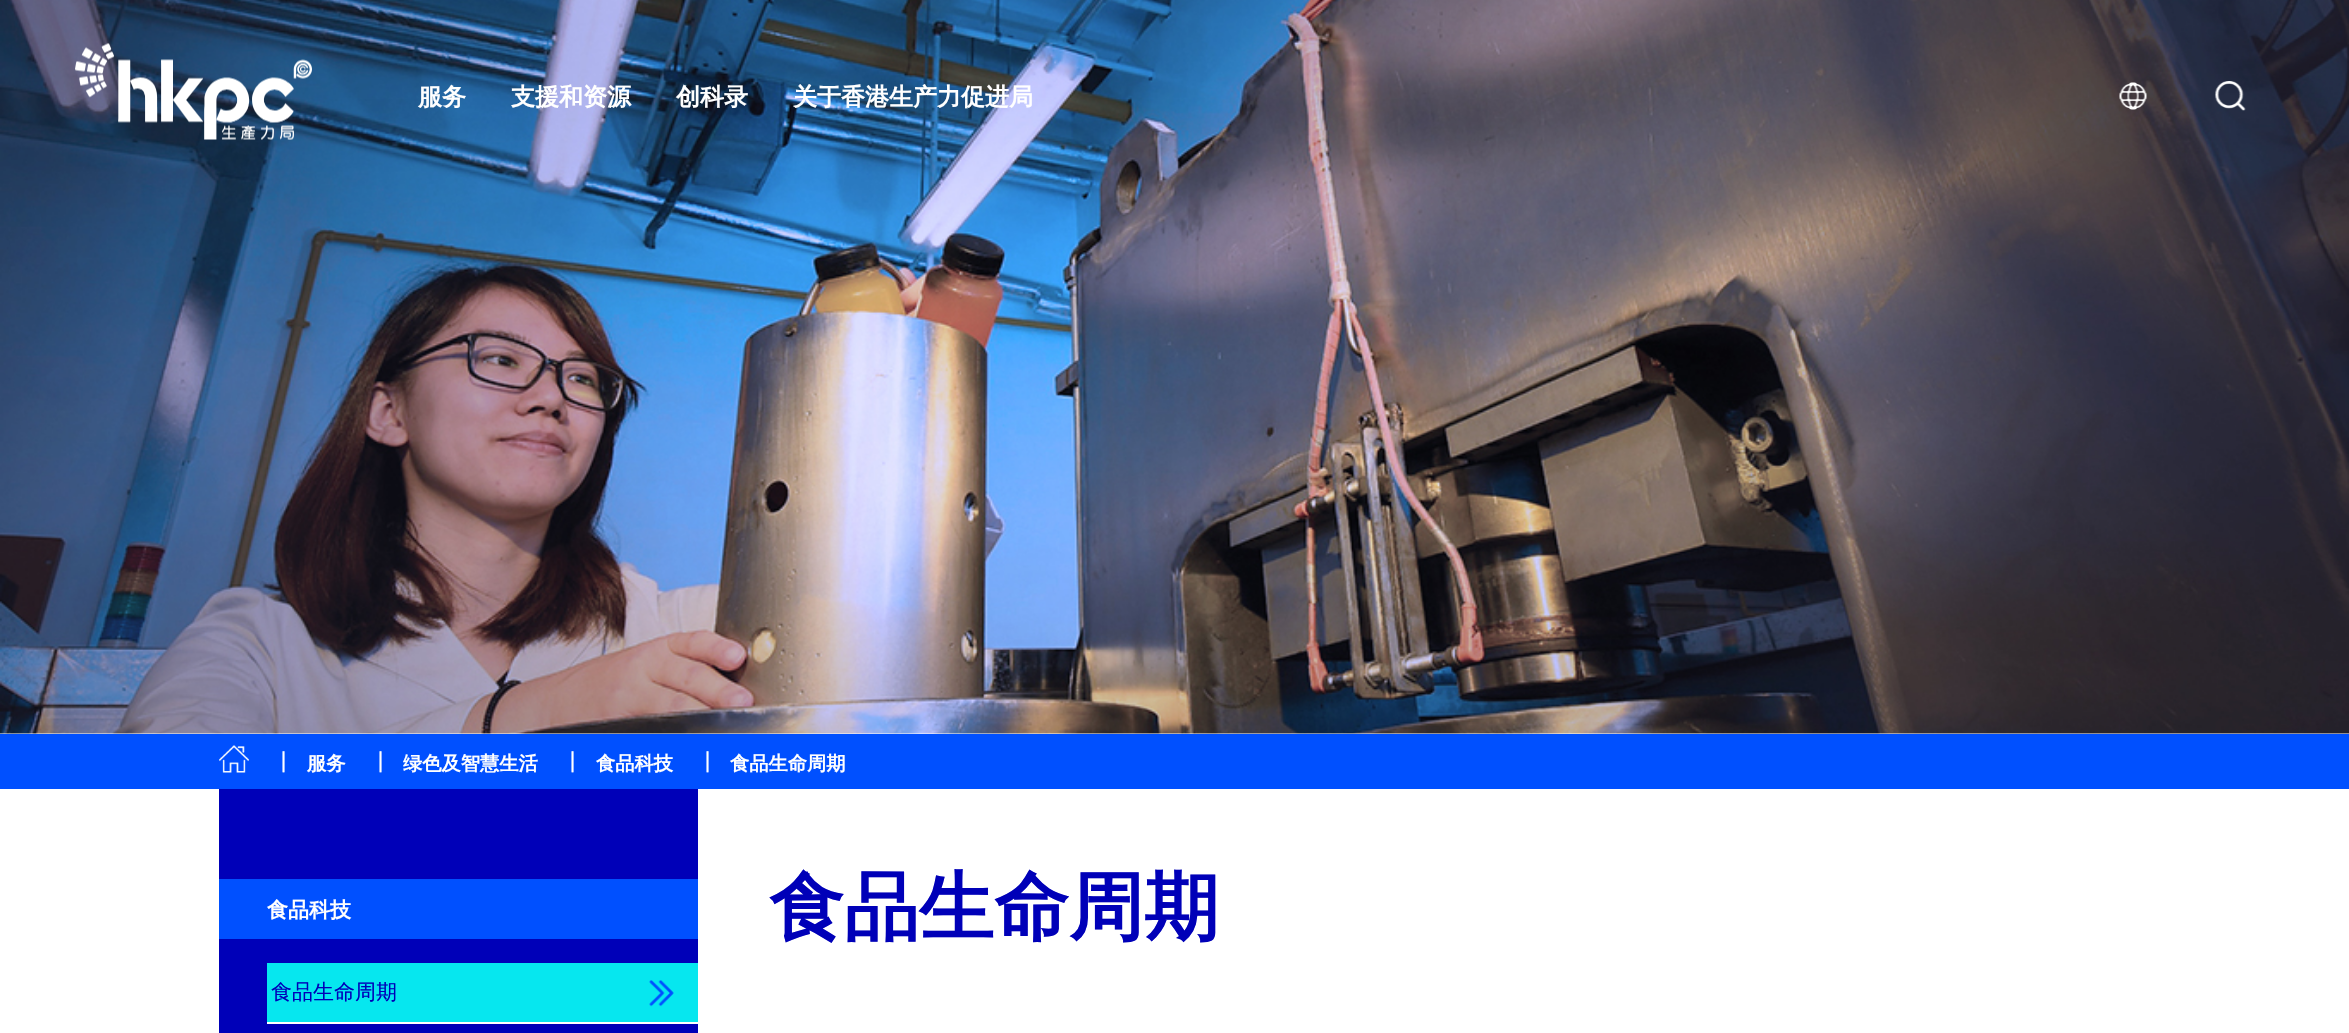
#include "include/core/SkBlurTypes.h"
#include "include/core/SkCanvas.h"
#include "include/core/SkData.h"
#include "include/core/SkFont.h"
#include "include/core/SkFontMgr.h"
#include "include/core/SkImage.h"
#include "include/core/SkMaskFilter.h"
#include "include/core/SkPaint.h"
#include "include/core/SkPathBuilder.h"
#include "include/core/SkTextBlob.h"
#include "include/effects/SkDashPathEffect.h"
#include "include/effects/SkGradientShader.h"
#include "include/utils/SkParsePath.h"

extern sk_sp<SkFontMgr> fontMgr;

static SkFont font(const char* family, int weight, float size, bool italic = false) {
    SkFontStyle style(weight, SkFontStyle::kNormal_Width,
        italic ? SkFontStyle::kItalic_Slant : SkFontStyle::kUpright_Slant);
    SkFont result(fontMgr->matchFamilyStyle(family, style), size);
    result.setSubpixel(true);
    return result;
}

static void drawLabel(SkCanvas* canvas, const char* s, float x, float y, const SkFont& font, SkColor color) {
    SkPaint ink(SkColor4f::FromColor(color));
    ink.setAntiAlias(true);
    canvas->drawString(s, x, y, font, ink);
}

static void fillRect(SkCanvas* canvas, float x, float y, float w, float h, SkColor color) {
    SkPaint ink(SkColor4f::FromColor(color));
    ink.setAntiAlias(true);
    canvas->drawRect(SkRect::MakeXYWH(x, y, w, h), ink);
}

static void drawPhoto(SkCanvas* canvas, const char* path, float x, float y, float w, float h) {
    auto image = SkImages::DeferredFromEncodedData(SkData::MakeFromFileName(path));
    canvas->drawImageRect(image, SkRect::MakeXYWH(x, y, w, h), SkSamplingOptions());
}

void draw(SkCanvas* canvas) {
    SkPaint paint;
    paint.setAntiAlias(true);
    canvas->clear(0xFFFFFFFF);
    drawPhoto(canvas, "assets/img1.png", 0, 0, 2349, 734);
    drawPhoto(canvas, "assets/img2.png", 75, 43, 237, 97);
    SkFont font1 = font("WenQuanYi Zen Hei", 700, 24);
    drawLabel(canvas, "服务", 418, 105, font1, 0xFFFFFFFF);
    drawLabel(canvas, "支援和资源", 511, 105, font1, 0xFFFFFFFF);
    drawLabel(canvas, "创科录", 676, 105, font1, 0xFFFFFFFF);
    drawLabel(canvas, "关于香港生产力促进局", 793, 105, font1, 0xFFFFFFFF);
    drawPhoto(canvas, "assets/img3.png", 2119, 82, 28, 28);
    drawPhoto(canvas, "assets/img4.png", 2215, 81, 31, 30);
    fillRect(canvas, 0, 734, 2349, 55, 0xFF0050FF);
    drawPhoto(canvas, "assets/img5.png", 219, 745, 30, 28);
    SkFont font2 = font("Calibri", 400, 24);
    drawLabel(canvas, "|", 278, 768, font2, 0xFFFFFFFF);
    SkFont font3 = font("WenQuanYi Zen Hei", 700, 19.25f);
    drawLabel(canvas, "服务", 307, 770, font3, 0xFFFFFFFF);
    drawLabel(canvas, "|", 375, 768, font2, 0xFFFFFFFF);
    drawLabel(canvas, "绿色及智慧生活", 403, 770, font3, 0xFFFFFFFF);
    drawLabel(canvas, "|", 567, 768, font2, 0xFFFFFFFF);
    drawLabel(canvas, "食品科技", 596, 770, font3, 0xFFFFFFFF);
    drawLabel(canvas, "|", 702, 768, font2, 0xFFFFFFFF);
    drawLabel(canvas, "食品生命周期", 730, 770, font3, 0xFFFFFFFF);
    fillRect(canvas, 219, 789, 479, 244, 0xFF0000B8);
    fillRect(canvas, 219, 879, 479, 60, 0xFF0050FF);
    SkFont font4 = font("WenQuanYi Zen Hei", 700, 21);
    drawLabel(canvas, "食品科技", 267, 917, font4, 0xFFFFFFFF);
    fillRect(canvas, 267, 963, 431, 59, 0xFF06E7EF);
    drawPhoto(canvas, "assets/img6.png", 649, 980, 25, 27);
    fillRect(canvas, 267, 1022, 431, 2, 0xFFFFFFFF);
    SkFont font5 = font("WenQuanYi Zen Hei", 500, 21);
    drawLabel(canvas, "食品生命周期", 271, 999, font5, 0xFF0000B8);
    SkFont font6 = font("WenQuanYi Zen Hei", 700, 75);
    drawLabel(canvas, "食品生命周期", 769, 933, font6, 0xFF0000B8);
}
